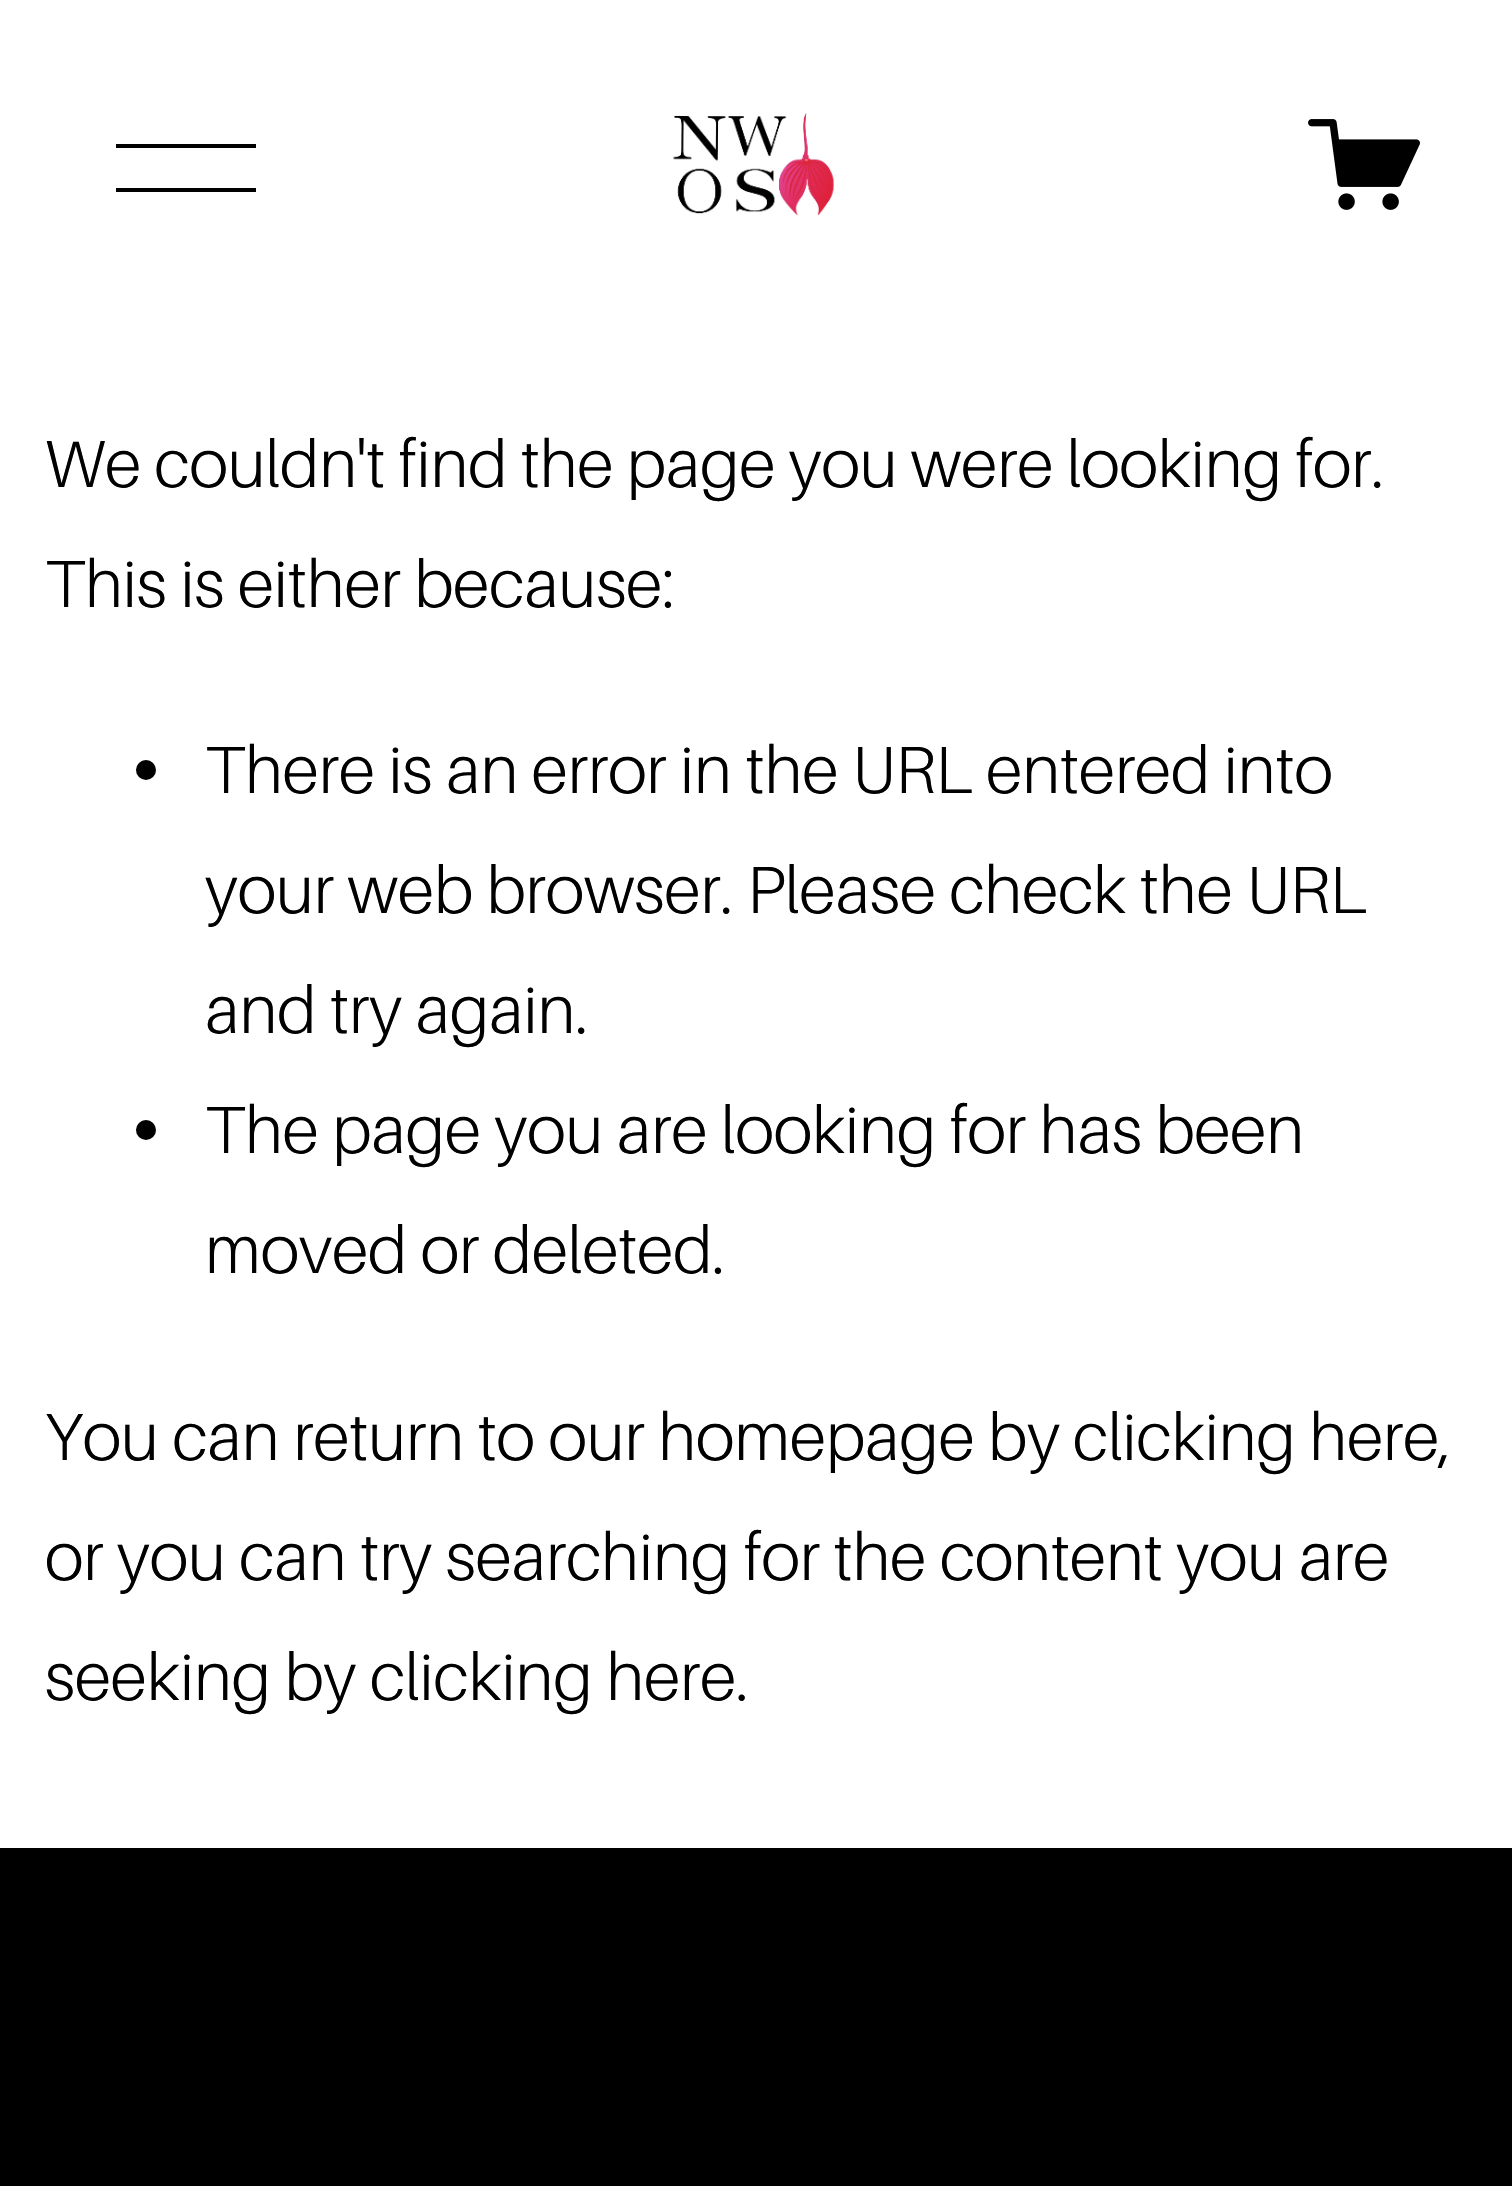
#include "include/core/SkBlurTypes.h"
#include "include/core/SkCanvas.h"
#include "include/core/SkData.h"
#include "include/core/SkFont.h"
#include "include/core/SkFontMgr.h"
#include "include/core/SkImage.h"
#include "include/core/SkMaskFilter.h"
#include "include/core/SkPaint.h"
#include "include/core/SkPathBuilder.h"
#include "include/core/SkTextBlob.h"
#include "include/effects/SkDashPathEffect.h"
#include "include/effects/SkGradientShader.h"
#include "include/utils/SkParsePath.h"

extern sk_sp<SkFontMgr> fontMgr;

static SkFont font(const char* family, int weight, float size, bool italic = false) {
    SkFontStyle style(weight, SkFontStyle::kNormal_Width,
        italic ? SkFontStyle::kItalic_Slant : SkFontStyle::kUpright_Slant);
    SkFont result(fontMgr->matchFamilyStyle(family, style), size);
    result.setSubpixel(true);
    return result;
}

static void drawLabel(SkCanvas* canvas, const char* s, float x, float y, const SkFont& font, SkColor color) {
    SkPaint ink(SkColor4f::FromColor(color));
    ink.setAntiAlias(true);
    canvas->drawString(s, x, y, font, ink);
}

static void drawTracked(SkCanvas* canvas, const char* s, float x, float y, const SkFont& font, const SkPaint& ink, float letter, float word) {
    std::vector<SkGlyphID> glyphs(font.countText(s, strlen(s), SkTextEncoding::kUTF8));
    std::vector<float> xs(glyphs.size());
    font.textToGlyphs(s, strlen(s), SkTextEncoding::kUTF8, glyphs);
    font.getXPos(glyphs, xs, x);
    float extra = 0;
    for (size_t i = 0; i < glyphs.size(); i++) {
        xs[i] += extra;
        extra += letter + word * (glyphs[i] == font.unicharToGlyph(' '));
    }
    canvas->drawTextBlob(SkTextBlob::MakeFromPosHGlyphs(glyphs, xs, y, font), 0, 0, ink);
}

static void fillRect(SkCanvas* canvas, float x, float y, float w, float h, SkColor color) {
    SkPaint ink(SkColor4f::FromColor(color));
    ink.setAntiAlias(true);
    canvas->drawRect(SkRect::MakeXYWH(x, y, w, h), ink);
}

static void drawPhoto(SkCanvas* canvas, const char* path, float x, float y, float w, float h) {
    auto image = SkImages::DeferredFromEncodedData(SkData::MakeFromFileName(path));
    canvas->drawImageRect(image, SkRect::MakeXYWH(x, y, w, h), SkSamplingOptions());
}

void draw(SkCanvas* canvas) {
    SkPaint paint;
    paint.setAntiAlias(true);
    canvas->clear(0xFFFFFFFF);
    fillRect(canvas, 116, 144, 140, 4, 0xFF000000);
    fillRect(canvas, 116, 188, 140, 4, 0xFF000000);
    drawPhoto(canvas, "assets/img1.png", 673, 113, 161, 103);
    drawPhoto(canvas, "assets/img2.png", 1308, 119, 112, 91);
    SkFont font1 = font("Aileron", 300, 66.6f);
    paint.setColor(0xFF000000);
    drawTracked(canvas, "We couldn't find the page you were looking for.", 45, 487, font1, paint, 0, -0.25f);
    drawLabel(canvas, "This is either because:", 45, 607, font1, 0xFF000000);
    canvas->drawCircle(146, 770, 10, paint);
    drawLabel(canvas, "There is an error in the URL entered into", 205, 793, font1, 0xFF000000);
    drawLabel(canvas, "your web browser. Please check the URL", 205, 913, font1, 0xFF000000);
    drawLabel(canvas, "and try again.", 205, 1033, font1, 0xFF000000);
    canvas->drawCircle(146, 1130, 10, paint);
    drawLabel(canvas, "The page you are looking for has been", 205, 1153, font1, 0xFF000000);
    drawLabel(canvas, "moved or deleted.", 205, 1273, font1, 0xFF000000);
    drawLabel(canvas, "You can return to our homepage by", 45, 1460, font1, 0xFF000000);
    drawLabel(canvas, "clicking here", 1073, 1460, font1, 0xFF000000);
    drawLabel(canvas, ",", 1439, 1460, font1, 0xFF000000);
    drawLabel(canvas, "or you can try searching for the", 45, 1580, font1, 0xFF000000);
    drawLabel(canvas, "content you are", 940, 1580, font1, 0xFF000000);
    drawLabel(canvas, "seeking by clicking here", 45, 1700, font1, 0xFF000000);
    drawLabel(canvas, ".", 736, 1700, font1, 0xFF000000);
    fillRect(canvas, 0, 1848, 1512, 338, 0xFF000000);
}
